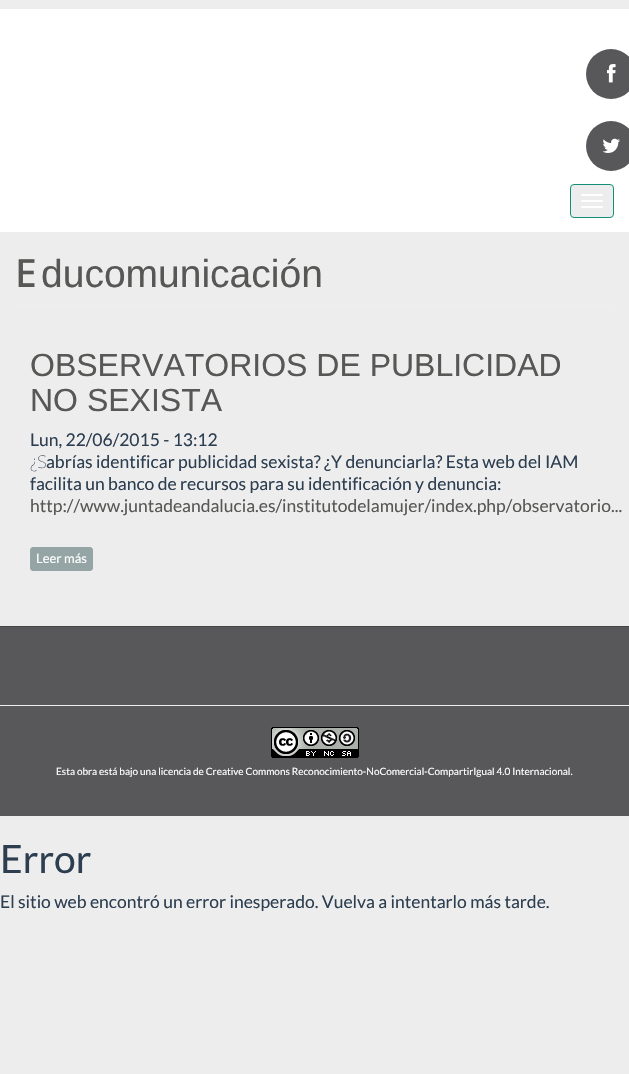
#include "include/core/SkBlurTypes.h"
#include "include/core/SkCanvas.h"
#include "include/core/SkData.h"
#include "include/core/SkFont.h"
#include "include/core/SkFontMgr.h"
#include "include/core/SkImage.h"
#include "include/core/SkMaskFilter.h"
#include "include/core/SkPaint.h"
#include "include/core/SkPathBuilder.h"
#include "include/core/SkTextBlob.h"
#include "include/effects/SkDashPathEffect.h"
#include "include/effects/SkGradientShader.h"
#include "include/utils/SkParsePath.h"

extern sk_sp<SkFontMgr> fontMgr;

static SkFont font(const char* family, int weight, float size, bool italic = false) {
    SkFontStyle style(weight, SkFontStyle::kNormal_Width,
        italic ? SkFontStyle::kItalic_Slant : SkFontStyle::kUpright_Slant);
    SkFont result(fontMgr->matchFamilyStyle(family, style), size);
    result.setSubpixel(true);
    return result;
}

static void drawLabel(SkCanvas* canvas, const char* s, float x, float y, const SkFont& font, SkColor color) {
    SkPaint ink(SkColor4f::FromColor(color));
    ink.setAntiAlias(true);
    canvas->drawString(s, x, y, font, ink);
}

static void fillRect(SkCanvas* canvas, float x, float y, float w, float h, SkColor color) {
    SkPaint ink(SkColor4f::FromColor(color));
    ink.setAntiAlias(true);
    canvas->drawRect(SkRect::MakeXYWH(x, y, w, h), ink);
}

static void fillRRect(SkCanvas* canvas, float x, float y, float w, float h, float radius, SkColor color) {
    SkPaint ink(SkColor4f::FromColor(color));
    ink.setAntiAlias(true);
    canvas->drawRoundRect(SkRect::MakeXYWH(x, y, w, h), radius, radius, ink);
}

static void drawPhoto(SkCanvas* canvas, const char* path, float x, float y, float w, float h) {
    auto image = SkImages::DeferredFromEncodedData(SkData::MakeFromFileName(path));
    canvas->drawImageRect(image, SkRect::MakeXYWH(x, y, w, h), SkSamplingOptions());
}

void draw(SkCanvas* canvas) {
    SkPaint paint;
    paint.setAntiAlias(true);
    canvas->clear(0xFFEDEDED);
    fillRect(canvas, 0, 9, 629, 223, 0xFFFFFFFF);
    paint.setColor(0xFF58585A);
    canvas->drawCircle(611, 74, 25, paint);
    drawPhoto(canvas, "assets/img1.png", 607, 64, 9, 19);
    canvas->drawCircle(611, 146, 25, paint);
    drawPhoto(canvas, "assets/img2.png", 602, 138, 18, 15);
    paint.setColor(0xFFEDEDED);
    canvas->drawRoundRect(SkRect::MakeXYWH(570.5f, 184.5f, 43, 33), 3.5f, 3.5f, paint);
    paint.setStroke(true);
    paint.setStrokeWidth(1);
    paint.setColor(0xFF128F76);
    canvas->drawRoundRect(SkRect::MakeXYWH(570.5f, 184.5f, 43, 33), 3.5f, 3.5f, paint);
    fillRRect(canvas, 581, 194, 22, 2, 1, 0xFFFFFFFF);
    fillRRect(canvas, 581, 200, 22, 2, 1, 0xFFFFFFFF);
    fillRRect(canvas, 581, 206, 22, 2, 1, 0xFFFFFFFF);
    fillRect(canvas, 15, 305, 599, 1, 0xFFECF0F1);
    SkFont font1 = font("Noto Sans", 500, 39);
    drawLabel(canvas, "E", 15, 287, font1, 0xFF575756);
    SkFont font2 = font("Liberation Sans", 400, 39);
    drawLabel(canvas, "ducomunicación", 41, 287, font2, 0xFF575756);
    SkFont font3 = font("Liberation Sans", 400, 32);
    drawLabel(canvas, "OBSERVATORIOS DE PUBLICIDAD", 30, 376, font3, 0xFF575756);
    drawLabel(canvas, "NO SEXISTA", 30, 411, font3, 0xFF575756);
    SkFont font4 = font("Lato", 400, 17.5f);
    drawLabel(canvas, "Lun, 22/06/2015 - 13:12", 30, 446, font4, 0xFF2C3E50);
    SkFont font5 = font("Noto Sans", 100, 17.5f);
    drawLabel(canvas, "¿S", 30, 468, font5, 0xFF2C3E50);
    drawLabel(canvas, "abrías identificar publicidad sexista? ¿Y denunciarla? Esta web del IAM", 46, 468, font4, 0xFF2C3E50);
    drawLabel(canvas, "facilita un banco de recursos para su identificación y denuncia:", 30, 490, font4, 0xFF2C3E50);
    drawLabel(canvas, "http://www.juntadeandalucia.es/institutodelamujer/index.php/observatorio...", 30, 512, font4, 0xFF575756);
    paint.setStroke(false);
    paint.setColor(0xFF95A5A6);
    canvas->drawRoundRect(SkRect::MakeXYWH(30.5f, 547.5f, 62, 23), 2.5f, 2.5f, paint);
    paint.setStroke(true);
    canvas->drawRoundRect(SkRect::MakeXYWH(30.5f, 547.5f, 62, 23), 2.5f, 2.5f, paint);
    SkFont font6 = font("Lato", 400, 13);
    drawLabel(canvas, "Leer más", 36, 563, font6, 0xFFFFFFFF);
    fillRect(canvas, 0, 627, 629, 189, 0xFF58585A);
    fillRect(canvas, 0, 626, 629, 1, 0xFF474747);
    fillRect(canvas, 0, 705, 629, 1, 0xFFECF0F1);
    drawPhoto(canvas, "assets/img3.png", 271, 727, 88, 31);
    SkFont font7 = font("Lato", 400, 10);
    drawLabel(canvas, "Esta obra está bajo una licencia de Creative Commons Reconocimiento-NoComercial-CompartirIgual 4.0 Internacional.", 56, 775, font7, 0xFFFFFFFF);
    SkFont font8 = font("Lato", 400, 39);
    drawLabel(canvas, "Error", 0, 873, font8, 0xFF2C3E50);
    drawLabel(canvas, "El sitio web encontró un error inesperado. Vuelva a intentarlo más tarde.", 0, 908, font4, 0xFF2C3E50);
}
